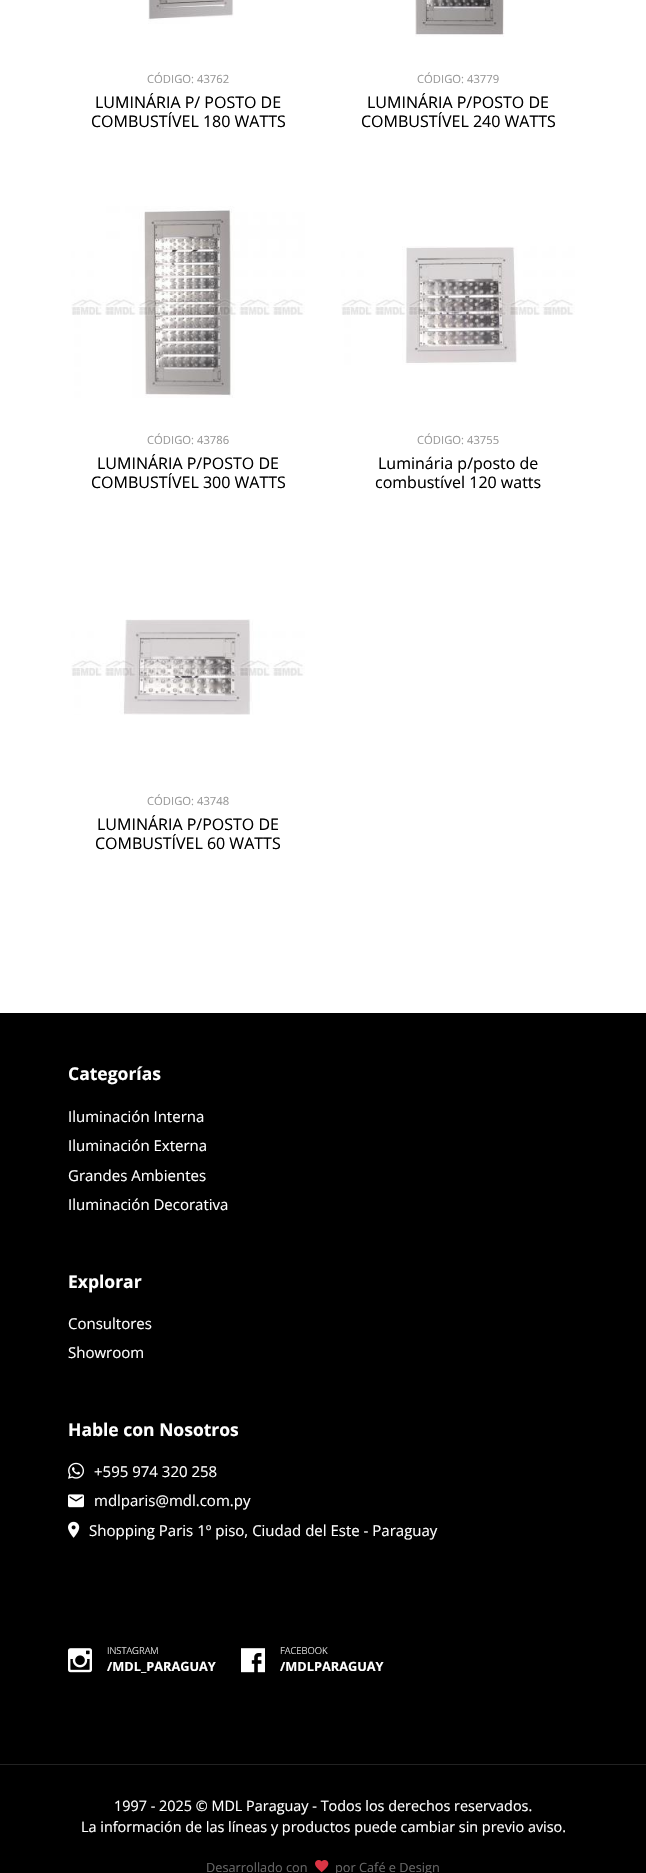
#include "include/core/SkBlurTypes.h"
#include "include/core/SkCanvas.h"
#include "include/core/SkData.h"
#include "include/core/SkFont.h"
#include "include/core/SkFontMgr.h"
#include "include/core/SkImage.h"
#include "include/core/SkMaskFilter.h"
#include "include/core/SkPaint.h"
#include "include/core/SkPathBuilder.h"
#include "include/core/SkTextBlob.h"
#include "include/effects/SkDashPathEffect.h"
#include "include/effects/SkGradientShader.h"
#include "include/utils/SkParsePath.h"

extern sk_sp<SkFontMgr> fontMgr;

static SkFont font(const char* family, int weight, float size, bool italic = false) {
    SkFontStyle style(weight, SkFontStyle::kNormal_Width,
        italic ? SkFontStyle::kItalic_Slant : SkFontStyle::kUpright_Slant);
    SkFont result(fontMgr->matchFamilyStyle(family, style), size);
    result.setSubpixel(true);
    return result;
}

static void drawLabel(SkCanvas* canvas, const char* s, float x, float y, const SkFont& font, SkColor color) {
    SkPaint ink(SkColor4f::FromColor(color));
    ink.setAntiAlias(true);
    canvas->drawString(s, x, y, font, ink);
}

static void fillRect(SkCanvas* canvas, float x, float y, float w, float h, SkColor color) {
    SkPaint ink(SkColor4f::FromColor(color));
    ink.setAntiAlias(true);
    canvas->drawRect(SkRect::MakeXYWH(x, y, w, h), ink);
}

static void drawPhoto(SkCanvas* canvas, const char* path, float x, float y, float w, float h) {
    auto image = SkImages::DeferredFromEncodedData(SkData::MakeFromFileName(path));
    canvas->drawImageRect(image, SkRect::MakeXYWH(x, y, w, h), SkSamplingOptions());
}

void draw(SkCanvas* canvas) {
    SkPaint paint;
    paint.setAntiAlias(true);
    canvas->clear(0xFFFFFFFF);
    drawPhoto(canvas, "assets/img1.png", 148, 0, 86, 24);
    SkFont font1 = font("Open Sans", 400, 11.25f);
    drawLabel(canvas, "CÓDIGO: 43762", 147, 83, font1, 0xFF999999);
    SkFont font2 = font("Open Sans", 400, 16);
    drawLabel(canvas, "LUMINÁRIA P/ POSTO DE", 95, 108, font2, 0xFF000000);
    drawLabel(canvas, "COMBUSTÍVEL 180 WATTS", 91, 127, font2, 0xFF000000);
    drawPhoto(canvas, "assets/img2.png", 415, 0, 90, 37);
    drawLabel(canvas, "CÓDIGO: 43779", 417, 83, font1, 0xFF999999);
    drawLabel(canvas, "LUMINÁRIA P/POSTO DE", 367, 108, font2, 0xFF000000);
    drawLabel(canvas, "COMBUSTÍVEL 240 WATTS", 361, 127, font2, 0xFF000000);
    drawPhoto(canvas, "assets/img3.png", 71, 206, 234, 192);
    drawLabel(canvas, "CÓDIGO: 43786", 147, 444, font1, 0xFF999999);
    drawLabel(canvas, "LUMINÁRIA P/POSTO DE", 97, 469, font2, 0xFF000000);
    drawLabel(canvas, "COMBUSTÍVEL 300 WATTS", 91, 488, font2, 0xFF000000);
    drawPhoto(canvas, "assets/img4.png", 341, 246, 234, 119);
    drawLabel(canvas, "CÓDIGO: 43755", 417, 444, font1, 0xFF999999);
    drawLabel(canvas, "Luminária p/posto de", 378, 469, font2, 0xFF000000);
    drawLabel(canvas, "combustível 120 watts", 375, 488, font2, 0xFF000000);
    drawPhoto(canvas, "assets/img5.png", 71, 619, 234, 96);
    drawLabel(canvas, "CÓDIGO: 43748", 147, 805, font1, 0xFF999999);
    drawLabel(canvas, "LUMINÁRIA P/POSTO DE", 97, 830, font2, 0xFF000000);
    drawLabel(canvas, "COMBUSTÍVEL 60 WATTS", 95, 849, font2, 0xFF000000);
    fillRect(canvas, 0, 1013, 646, 860, 0xFF000000);
    SkFont font3 = font("Open Sans", 700, 17.5f);
    drawLabel(canvas, "Categorías", 68, 1080, font3, 0xFFFFFFFF);
    SkFont font4 = font("Open Sans", 400, 15);
    drawLabel(canvas, "Iluminación Interna", 68, 1122, font4, 0xFFFFFFFF);
    drawLabel(canvas, "Iluminación Externa", 68, 1151, font4, 0xFFFFFFFF);
    drawLabel(canvas, "Grandes Ambientes", 68, 1181, font4, 0xFFFFFFFF);
    drawLabel(canvas, "Iluminación Decorativa", 68, 1210, font4, 0xFFFFFFFF);
    drawLabel(canvas, "Explorar", 68, 1288, font3, 0xFFFFFFFF);
    drawLabel(canvas, "Consultores", 68, 1329, font4, 0xFFFFFFFF);
    drawLabel(canvas, "Showroom", 68, 1358, font4, 0xFFFFFFFF);
    drawLabel(canvas, "Hable con Nosotros", 68, 1436, font3, 0xFFFFFFFF);
    drawPhoto(canvas, "assets/img6.png", 68, 1462, 16, 17);
    drawLabel(canvas, "+595 974 320 258", 94, 1477, font4, 0xFFFFFFFF);
    drawPhoto(canvas, "assets/img7.png", 68, 1494, 16, 14);
    drawLabel(canvas, "mdlparis@mdl.com.py", 94, 1506, font4, 0xFFFFFFFF);
    drawPhoto(canvas, "assets/img8.png", 68, 1521, 12, 17);
    drawLabel(canvas, "Shopping Paris 1º piso, Ciudad del Este - Paraguay", 89, 1536, font4, 0xFFFFFFFF);
    drawPhoto(canvas, "assets/img9.png", 68, 1648, 24, 25);
    SkFont font5 = font("Open Sans", 300, 9.5f);
    drawLabel(canvas, "INSTAGRAM", 107, 1654, font5, 0xFFFFFFFF);
    SkFont font6 = font("Open Sans", 700, 12.75f);
    drawLabel(canvas, "/MDL_PARAGUAY", 107, 1671, font6, 0xFFFFFFFF);
    drawPhoto(canvas, "assets/img10.png", 241, 1648, 24, 25);
    drawLabel(canvas, "FACEBOOK", 280, 1654, font5, 0xFFFFFFFF);
    drawLabel(canvas, "/MDLPARAGUAY", 280, 1671, font6, 0xFFFFFFFF);
    fillRect(canvas, 0, 1764, 646, 1, 0xFF222222);
    SkFont font7 = font("Open Sans", 400, 14.4f);
    drawLabel(canvas, "1997 - 2025 © MDL Paraguay - Todos los derechos reservados.", 114, 1811, font7, 0xFFFFFFFF);
    drawLabel(canvas, "La información de las líneas y productos puede cambiar sin previo aviso.", 81, 1832, font7, 0xFFFFFFFF);
    SkFont font8 = font("Open Sans", 400, 12.75f);
    drawLabel(canvas, "Desarrollado con", 206, 1872, font8, 0xFF666666);
    drawPhoto(canvas, "assets/img11.png", 315, 1860, 14, 13);
    drawLabel(canvas, "por Café e Design", 335, 1872, font8, 0xFF666666);
}
